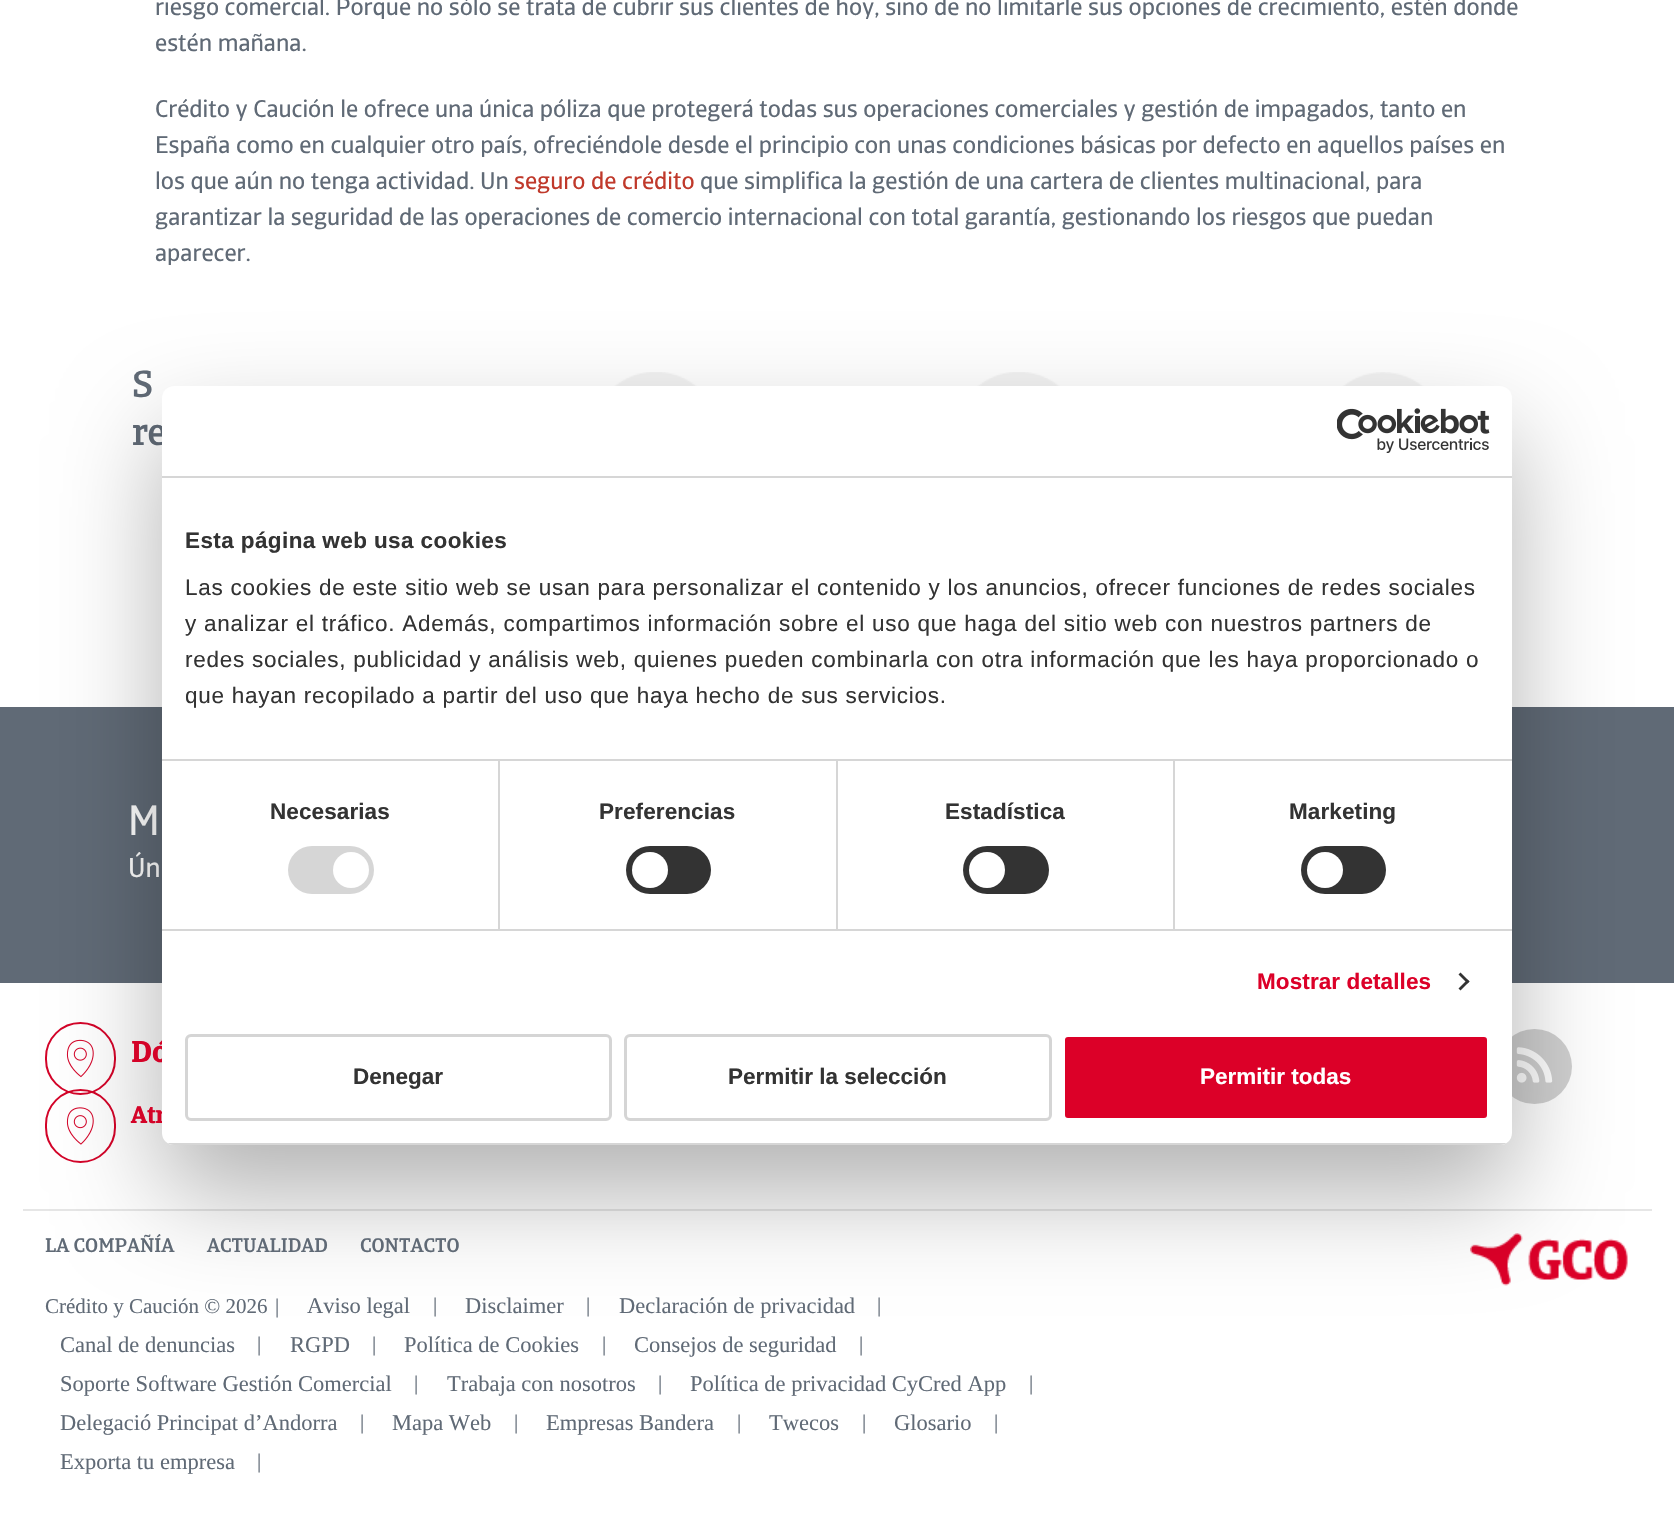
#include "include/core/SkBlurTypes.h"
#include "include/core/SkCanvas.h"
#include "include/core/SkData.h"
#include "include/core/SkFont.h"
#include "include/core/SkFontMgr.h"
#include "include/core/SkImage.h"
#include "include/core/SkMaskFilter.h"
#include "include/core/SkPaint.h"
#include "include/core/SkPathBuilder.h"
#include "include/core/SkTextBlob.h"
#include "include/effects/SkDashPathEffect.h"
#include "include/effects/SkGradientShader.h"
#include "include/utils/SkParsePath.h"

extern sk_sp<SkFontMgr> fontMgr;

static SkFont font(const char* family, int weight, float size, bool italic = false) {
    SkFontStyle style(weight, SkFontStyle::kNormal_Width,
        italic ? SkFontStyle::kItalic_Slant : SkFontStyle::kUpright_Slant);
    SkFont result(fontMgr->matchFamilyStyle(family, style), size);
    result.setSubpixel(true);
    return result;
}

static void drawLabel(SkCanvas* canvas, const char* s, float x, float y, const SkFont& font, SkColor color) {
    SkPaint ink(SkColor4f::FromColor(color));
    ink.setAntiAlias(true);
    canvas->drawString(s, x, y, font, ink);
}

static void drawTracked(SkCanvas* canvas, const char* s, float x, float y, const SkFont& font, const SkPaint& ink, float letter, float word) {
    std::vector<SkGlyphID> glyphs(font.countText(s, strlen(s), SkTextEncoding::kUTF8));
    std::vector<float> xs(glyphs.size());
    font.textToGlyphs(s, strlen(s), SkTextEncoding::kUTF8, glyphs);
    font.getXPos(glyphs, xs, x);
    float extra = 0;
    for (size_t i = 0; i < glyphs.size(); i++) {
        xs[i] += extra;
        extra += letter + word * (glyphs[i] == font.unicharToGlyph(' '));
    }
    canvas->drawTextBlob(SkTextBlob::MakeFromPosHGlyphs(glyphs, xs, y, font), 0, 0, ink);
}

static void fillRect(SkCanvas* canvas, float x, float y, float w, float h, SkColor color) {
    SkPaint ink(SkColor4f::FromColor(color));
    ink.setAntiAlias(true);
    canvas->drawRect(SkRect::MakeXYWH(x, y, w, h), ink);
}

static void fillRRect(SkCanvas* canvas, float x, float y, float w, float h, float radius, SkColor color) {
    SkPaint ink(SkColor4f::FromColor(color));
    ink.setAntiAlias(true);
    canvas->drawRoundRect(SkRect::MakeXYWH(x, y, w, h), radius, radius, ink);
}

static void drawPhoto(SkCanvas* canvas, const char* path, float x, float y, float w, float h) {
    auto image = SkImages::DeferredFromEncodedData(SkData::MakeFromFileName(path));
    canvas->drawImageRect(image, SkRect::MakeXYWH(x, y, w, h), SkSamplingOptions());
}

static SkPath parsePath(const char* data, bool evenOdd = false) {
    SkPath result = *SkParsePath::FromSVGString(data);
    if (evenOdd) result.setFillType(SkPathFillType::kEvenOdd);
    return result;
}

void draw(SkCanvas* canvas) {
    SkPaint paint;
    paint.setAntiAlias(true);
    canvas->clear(0xFFFFFFFF);
    SkFont font1 = font("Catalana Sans", 400, 24);
    drawLabel(canvas, "riesgo comercial. Porque no sólo se trata de cubrir sus clientes de hoy, sino de no limitarle sus opciones de crecimiento, estén donde", 155, 15, font1, 0xFF606A76);
    drawLabel(canvas, "estén mañana.", 155, 51, font1, 0xFF606A76);
    drawLabel(canvas, "Crédito y Caución le ofrece una única póliza que protegerá todas sus operaciones comerciales y gestión de impagados, tanto en", 155, 117, font1, 0xFF606A76);
    drawLabel(canvas, "España como en cualquier otro país, ofreciéndole desde el principio con unas condiciones básicas por defecto en aquellos países en", 155, 153, font1, 0xFF606A76);
    drawLabel(canvas, "los que aún no tenga actividad. Un", 155, 189, font1, 0xFF606A76);
    drawLabel(canvas, "seguro de crédito", 514, 189, font1, 0xFFC0392B);
    drawLabel(canvas, "que simplifica la gestión de una cartera de clientes multinacional, para", 700, 189, font1, 0xFF606A76);
    drawLabel(canvas, "garantizar la seguridad de las operaciones de comercio internacional con total garantía, gestionando los riesgos que puedan", 155, 225, font1, 0xFF606A76);
    drawLabel(canvas, "aparecer.", 155, 261, font1, 0xFF606A76);
    SkFont font2 = font("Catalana", 700, 36);
    drawLabel(canvas, "S", 132, 397, font2, 0xFF606A76);
    drawLabel(canvas, "re", 132, 445, font2, 0xFF606A76);
    drawPhoto(canvas, "assets/img1.png", 614, 372, 83, 14);
    drawPhoto(canvas, "assets/img2.png", 977, 372, 83, 14);
    drawPhoto(canvas, "assets/img3.png", 1342, 372, 82, 14);
    fillRect(canvas, 0, 707, 1674, 276, 0xFF606A76);
    SkFont font3 = font("Catalana Sans", 400, 42);
    drawLabel(canvas, "M", 128, 835, font3, 0xFFFFFFFF);
    SkFont font4 = font("Catalana Sans", 400, 27);
    drawLabel(canvas, "Ún", 128, 877, font4, 0xFFFFFFFF);
    paint.setStroke(true);
    paint.setStrokeWidth(2);
    paint.setColor(0xFFD40328);
    canvas->drawRoundRect(SkRect::MakeXYWH(46, 1023, 69, 71), 34.5f, 34.5f, paint);
    drawPhoto(canvas, "assets/img5.png", 66, 1039, 28, 39);
    canvas->drawRoundRect(SkRect::MakeXYWH(46, 1090, 69, 72), 34.5f, 34.5f, paint);
    drawPhoto(canvas, "assets/img6.png", 66, 1107, 28, 38);
    paint.setStroke(false);
    paint.setColor(0xFFD0D0D0);
    canvas->drawCircle(1534.5f, 1066.5f, 37.5f, paint);
    drawPhoto(canvas, "assets/img7.png", 1516, 1047, 37, 36);
    fillRect(canvas, 23, 1209, 1629, 2, 0xFFE6E6E6);
    drawPhoto(canvas, "assets/img8.png", 1470, 1233, 158, 53);
    paint.setColor(0x4D000000);
    paint.setMaskFilter(SkMaskFilter::MakeBlur(kNormal_SkBlurStyle, 51));
    canvas->drawRoundRect(SkRect::MakeXYWH(162, 434, 1350, 759), 12, 12, paint);
    paint.setMaskFilter(nullptr);
    SkFont font5 = font("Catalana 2", 700, 30);
    drawLabel(canvas, "Dó", 131, 1062, font5, 0xFFD40328);
    SkFont font6 = font("Catalana 2", 700, 24);
    drawLabel(canvas, "Atr", 131, 1123, font6, 0xFFD40328);
    fillRRect(canvas, 162, 386, 1350, 759, 12, 0xFFFFFFFF);
    fillRect(canvas, 162, 476, 1350, 2, 0xFFD6D6D6);
    drawPhoto(canvas, "assets/img4.png", 1337, 408, 153, 45);
    fillRect(canvas, 162, 759, 1350, 2, 0xFFD6D6D6);
    SkFont font7 = font("Liberation Sans", 700, 22.5f);
    paint.setColor(0xFF333333);
    drawTracked(canvas, "Esta página web usa cookies", 185, 548, font7, paint, 0.4f, 0);
    SkFont font8 = font("Liberation Sans", 400, 22.5f);
    drawTracked(canvas, "Las cookies de este sitio web se usan para personalizar el contenido y los anuncios, ofrecer funciones de redes sociales", 185, 595, font8, paint, 0.75f, 0);
    drawTracked(canvas, "y analizar el tráfico. Además, compartimos información sobre el uso que haga del sitio web con nuestros partners de", 185, 631, font8, paint, 0.75f, 0);
    drawTracked(canvas, "redes sociales, publicidad y análisis web, quienes pueden combinarla con otra información que les haya proporcionado o", 185, 667, font8, paint, 0.75f, 0);
    drawTracked(canvas, "que hayan recopilado a partir del uso que haya hecho de sus servicios.", 185, 703, font8, paint, 0.75f, 0);
    fillRect(canvas, 162, 929, 1350, 2, 0xFFD6D6D6);
    fillRect(canvas, 498, 761, 2, 168, 0xFFD6D6D6);
    drawTracked(canvas, "Necesarias", 270, 819, font7, paint, 0.1f, 0);
    fillRRect(canvas, 288, 846, 86, 48, 24, 0xFFD6D6D6);
    paint.setColor(0xFFFFFFFF);
    canvas->drawCircle(351, 870, 18, paint);
    fillRect(canvas, 836, 761, 2, 168, 0xFFD6D6D6);
    paint.setColor(0xFF333333);
    drawTracked(canvas, "Preferencias", 599, 819, font7, paint, 0.1f, 0);
    fillRRect(canvas, 626, 846, 85, 48, 24, 0xFF333333);
    paint.setColor(0xFFFFFFFF);
    canvas->drawCircle(650, 870, 18, paint);
    fillRect(canvas, 1173, 761, 2, 168, 0xFFD6D6D6);
    paint.setColor(0xFF333333);
    drawTracked(canvas, "Estadística", 945, 819, font7, paint, 0.1f, 0);
    fillRRect(canvas, 963, 846, 86, 48, 24, 0xFF333333);
    paint.setColor(0xFFFFFFFF);
    canvas->drawCircle(987, 870, 18, paint);
    paint.setColor(0xFF333333);
    drawTracked(canvas, "Marketing", 1289, 819, font7, paint, 0.1f, 0);
    fillRRect(canvas, 1301, 846, 85, 48, 24, 0xFF333333);
    paint.setColor(0xFFFFFFFF);
    canvas->drawCircle(1325, 870, 18, paint);
    paint.setColor(0xFFDC0028);
    drawTracked(canvas, "Mostrar detalles", 1257, 989, font7, paint, 0.1f, 0);
    paint.setColor(0xFF333333);
    canvas->drawPath(parsePath("M1460.5 972.5L1469.5 981.5L1467.5 983.5L1458.5 974.5Z"), paint);
    canvas->drawPath(parsePath("M1467.5 979.5L1469.5 981.5L1460.5 990.5L1458.5 988.5Z"), paint);
    canvas->save();
    canvas->clipPath(parsePath("M174 386H1500C1506.5 386 1512 391.5 1512 398V1133C1512 1139.5 1506.5 1145 1500 1145H174C167.5 1145 162 1139.5 162 1133V398C162 391.5 167.5 386 174 386Z"), true);
    fillRect(canvas, 162, 1143, 1350, 2, 0xFFD6D6D6);
    canvas->restore();
    paint.setStroke(true);
    paint.setStrokeWidth(3);
    paint.setColor(0xFFD5D5D5);
    canvas->drawRoundRect(SkRect::MakeXYWH(186.5f, 1035.5f, 424, 84), 4.5f, 4.5f, paint);
    drawLabel(canvas, "Denegar", 353, 1084, font7, 0xFF333333);
    canvas->drawRoundRect(SkRect::MakeXYWH(625.5f, 1035.5f, 425, 84), 4.5f, 4.5f, paint);
    drawLabel(canvas, "Permitir la selección", 728, 1084, font7, 0xFF333333);
    paint.setStroke(false);
    paint.setColor(0xFFDC0028);
    canvas->drawRoundRect(SkRect::MakeXYWH(1063.5f, 1035.5f, 425, 84), 4.5f, 4.5f, paint);
    paint.setStroke(true);
    paint.setColor(0xFFFFFFFF);
    canvas->drawRoundRect(SkRect::MakeXYWH(1063.5f, 1035.5f, 425, 84), 4.5f, 4.5f, paint);
    drawLabel(canvas, "Permitir todas", 1200, 1084, font7, 0xFFFFFFFF);
    SkFont font9 = font("Catalana", 500, 19.5f);
    drawLabel(canvas, "LA COMPAÑÍA", 45, 1252, font9, 0xFF606A76);
    drawLabel(canvas, "ACTUALIDAD", 207, 1252, font9, 0xFF606A76);
    drawLabel(canvas, "CONTACTO", 360, 1252, font9, 0xFF606A76);
    SkFont font10 = font("Liberation Serif", 400, 21);
    drawLabel(canvas, "Crédito y Caución © 2026", 45, 1313, font10, 0xFF606A76);
    drawLabel(canvas, "|", 275, 1313, font10, 0xFF606A76);
    SkFont font11 = font("Liberation Serif", 400, 22.5f);
    drawLabel(canvas, "Aviso legal", 307, 1313, font11, 0xFF606A76);
    drawLabel(canvas, "|", 433, 1312, font10, 0xFF606A76);
    drawLabel(canvas, "Disclaimer", 465, 1313, font11, 0xFF606A76);
    drawLabel(canvas, "|", 586, 1312, font10, 0xFF606A76);
    drawLabel(canvas, "Declaración de privacidad", 619, 1313, font11, 0xFF606A76);
    drawLabel(canvas, "|", 877, 1312, font10, 0xFF606A76);
    drawLabel(canvas, "Canal de denuncias", 60, 1352, font11, 0xFF606A76);
    drawLabel(canvas, "|", 257, 1351, font10, 0xFF606A76);
    drawLabel(canvas, "RGPD", 290, 1352, font11, 0xFF606A76);
    drawLabel(canvas, "|", 372, 1351, font10, 0xFF606A76);
    drawLabel(canvas, "Política de Cookies", 404, 1352, font11, 0xFF606A76);
    drawLabel(canvas, "|", 602, 1351, font10, 0xFF606A76);
    drawLabel(canvas, "Consejos de seguridad", 634, 1352, font11, 0xFF606A76);
    drawLabel(canvas, "|", 859, 1351, font10, 0xFF606A76);
    drawLabel(canvas, "Soporte Software Gestión Comercial", 60, 1391, font11, 0xFF606A76);
    drawLabel(canvas, "|", 414, 1390, font10, 0xFF606A76);
    drawLabel(canvas, "Trabaja con nosotros", 447, 1391, font11, 0xFF606A76);
    drawLabel(canvas, "|", 658, 1390, font10, 0xFF606A76);
    drawLabel(canvas, "Política de privacidad CyCred App", 690, 1391, font11, 0xFF606A76);
    drawLabel(canvas, "|", 1029, 1390, font10, 0xFF606A76);
    drawLabel(canvas, "Delegació Principat d’Andorra", 60, 1430, font11, 0xFF606A76);
    drawLabel(canvas, "|", 360, 1429, font10, 0xFF606A76);
    drawLabel(canvas, "Mapa Web", 392, 1430, font11, 0xFF606A76);
    drawLabel(canvas, "|", 514, 1429, font10, 0xFF606A76);
    drawLabel(canvas, "Empresas Bandera", 546, 1430, font11, 0xFF606A76);
    drawLabel(canvas, "|", 737, 1429, font10, 0xFF606A76);
    drawLabel(canvas, "Twecos", 769, 1430, font11, 0xFF606A76);
    drawLabel(canvas, "|", 862, 1429, font10, 0xFF606A76);
    drawLabel(canvas, "Glosario", 894, 1430, font11, 0xFF606A76);
    drawLabel(canvas, "|", 994, 1429, font10, 0xFF606A76);
    drawLabel(canvas, "Exporta tu empresa", 60, 1469, font11, 0xFF606A76);
    drawLabel(canvas, "|", 257, 1468, font10, 0xFF606A76);
}
